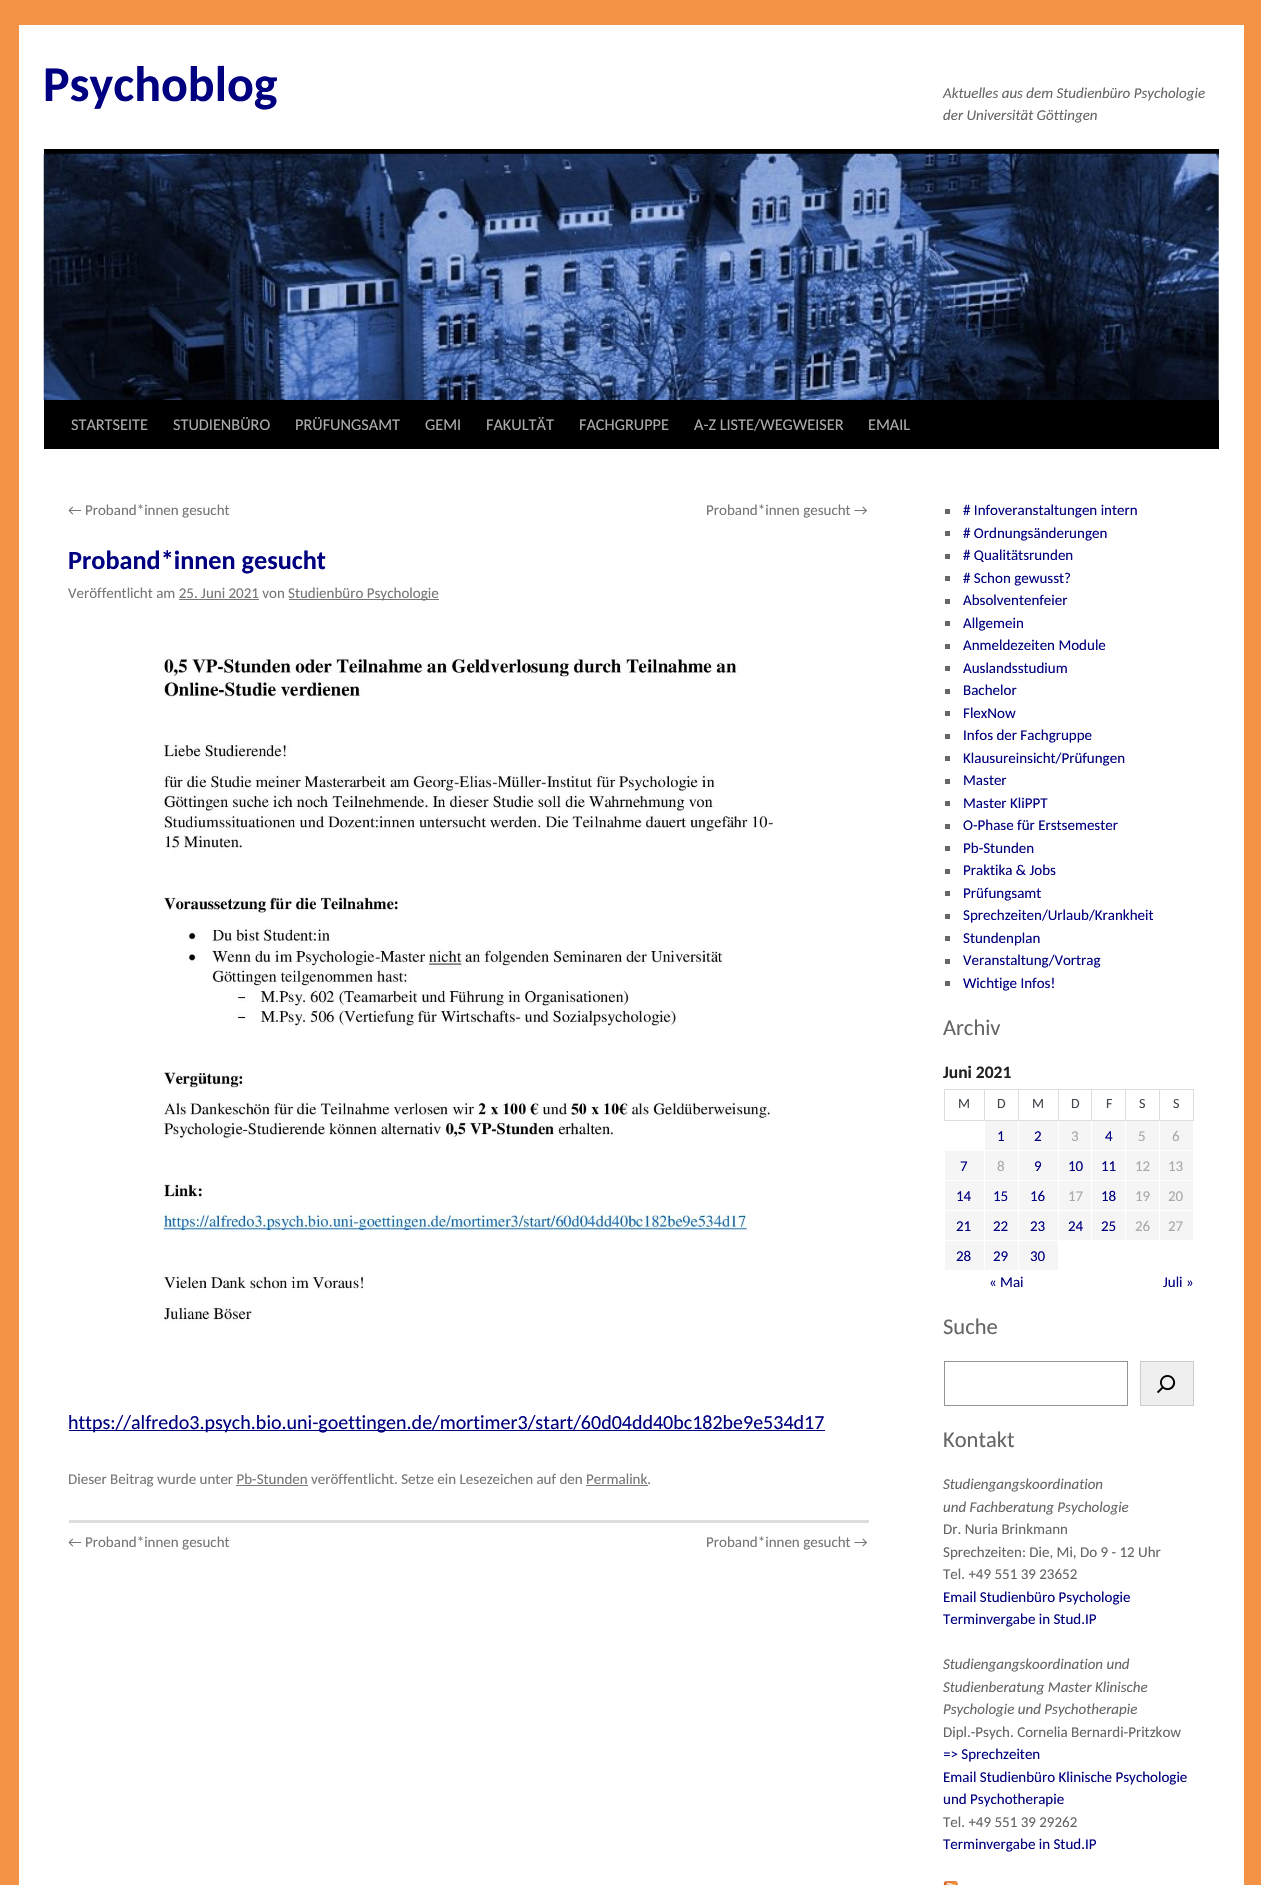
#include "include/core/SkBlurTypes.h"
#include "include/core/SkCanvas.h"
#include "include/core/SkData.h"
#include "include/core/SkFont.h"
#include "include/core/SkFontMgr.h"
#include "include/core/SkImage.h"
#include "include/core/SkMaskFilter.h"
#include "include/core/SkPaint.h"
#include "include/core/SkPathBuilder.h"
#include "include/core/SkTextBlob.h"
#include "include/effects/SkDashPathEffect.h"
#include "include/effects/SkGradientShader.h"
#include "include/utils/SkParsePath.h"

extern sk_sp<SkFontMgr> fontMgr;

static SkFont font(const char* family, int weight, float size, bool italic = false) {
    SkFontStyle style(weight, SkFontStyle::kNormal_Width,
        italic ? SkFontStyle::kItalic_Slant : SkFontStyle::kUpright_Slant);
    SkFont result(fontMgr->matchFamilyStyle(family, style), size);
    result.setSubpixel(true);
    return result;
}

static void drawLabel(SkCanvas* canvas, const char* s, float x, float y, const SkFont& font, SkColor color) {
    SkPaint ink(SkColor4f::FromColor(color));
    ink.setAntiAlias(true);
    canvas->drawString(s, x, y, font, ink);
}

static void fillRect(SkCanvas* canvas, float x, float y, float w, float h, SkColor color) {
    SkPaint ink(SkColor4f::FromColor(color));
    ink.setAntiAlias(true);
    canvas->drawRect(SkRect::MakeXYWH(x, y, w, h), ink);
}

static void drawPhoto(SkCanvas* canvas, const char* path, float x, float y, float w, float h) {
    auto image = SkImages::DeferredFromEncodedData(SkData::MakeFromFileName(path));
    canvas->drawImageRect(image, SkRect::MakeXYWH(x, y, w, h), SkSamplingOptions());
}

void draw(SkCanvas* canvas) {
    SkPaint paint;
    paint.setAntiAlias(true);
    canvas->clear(0xFFF49246);
    fillRect(canvas, 19, 25, 1225, 1860, 0xFFFFFFFF);
    SkFont font1 = font("Carlito", 700, 50);
    drawLabel(canvas, "Psychoblog", 43, 101, font1, 0xFF000080);
    SkFont font2 = font("Carlito", 400, 15, true);
    drawLabel(canvas, "Aktuelles aus dem Studienbüro Psychologie", 943, 98, font2, 0xFF666666);
    drawLabel(canvas, "der Universität Göttingen", 943, 120, font2, 0xFF666666);
    fillRect(canvas, 44, 149, 1175, 5, 0xFF000000);
    fillRect(canvas, 44, 400, 1175, 49, 0xFF000000);
    drawPhoto(canvas, "assets/img1.png", 43, 153, 1176, 247);
    SkFont font3 = font("Carlito", 400, 16.25f);
    drawLabel(canvas, "STARTSEITE", 71, 430, font3, 0xFFAAAAAA);
    drawLabel(canvas, "STUDIENBÜRO", 173, 430, font3, 0xFFAAAAAA);
    drawLabel(canvas, "PRÜFUNGSAMT", 295, 430, font3, 0xFFAAAAAA);
    drawLabel(canvas, "GEMI", 425, 430, font3, 0xFFAAAAAA);
    drawLabel(canvas, "FAKULTÄT", 486, 430, font3, 0xFFAAAAAA);
    drawLabel(canvas, "FACHGRUPPE", 579, 430, font3, 0xFFAAAAAA);
    drawLabel(canvas, "A-Z LISTE/WEGWEISER", 694, 430, font3, 0xFFAAAAAA);
    drawLabel(canvas, "EMAIL", 868, 430, font3, 0xFFAAAAAA);
    SkFont font4 = font("Carlito", 400, 15);
    drawLabel(canvas, "← Proband*innen gesucht", 68, 515, font4, 0xFF777777);
    drawLabel(canvas, "Proband*innen gesucht →", 706, 515, font4, 0xFF777777);
    fillRect(canvas, 69, 1520, 800, 3, 0xFFDDDDDD);
    SkFont font5 = font("Carlito", 700, 26.25f);
    drawLabel(canvas, "Proband*innen gesucht", 68, 569, font5, 0xFF000080);
    drawLabel(canvas, "Veröffentlicht am 25. Juni 2021 von", 68, 598, font4, 0xFF777777);
    fillRect(canvas, 289, 599, 150, 1, 0xFF777777);
    drawLabel(canvas, "Studienbüro Psychologie", 288, 598, font4, 0xFF777777);
    fillRect(canvas, 179, 599, 80, 1, 0xFF777777);
    drawPhoto(canvas, "assets/img2.png", 160, 656, 613, 666);
    fillRect(canvas, 69, 1430, 756, 1, 0xFF000080);
    SkFont font6 = font("Carlito", 400, 20);
    drawLabel(canvas, "https://alfredo3.psych.bio.uni-goettingen.de/mortimer3/start/60d04dd40bc182be9e534d17", 68, 1429, font6, 0xFF000080);
    drawLabel(canvas, "Dieser Beitrag wurde unter Pb-Stunden veröffentlicht. Setze ein Lesezeichen auf den Permalink.", 68, 1484, font4, 0xFF777777);
    fillRect(canvas, 236, 1485, 72, 1, 0xFF777777);
    fillRect(canvas, 586, 1485, 62, 1, 0xFF777777);
    drawLabel(canvas, "← Proband*innen gesucht", 68, 1547, font4, 0xFF777777);
    drawLabel(canvas, "Proband*innen gesucht →", 706, 1547, font4, 0xFF777777);
    fillRect(canvas, 945, 509, 5, 5, 0xFF666666);
    drawLabel(canvas, "# Infoveranstaltungen intern", 963, 515, font4, 0xFF000080);
    fillRect(canvas, 945, 531, 5, 5, 0xFF666666);
    drawLabel(canvas, "# Ordnungsänderungen", 963, 538, font4, 0xFF000080);
    fillRect(canvas, 945, 554, 5, 5, 0xFF666666);
    drawLabel(canvas, "# Qualitätsrunden", 963, 560, font4, 0xFF000080);
    fillRect(canvas, 945, 576, 5, 5, 0xFF666666);
    drawLabel(canvas, "# Schon gewusst?", 963, 583, font4, 0xFF000080);
    fillRect(canvas, 945, 599, 5, 5, 0xFF666666);
    drawLabel(canvas, "Absolventenfeier", 963, 605, font4, 0xFF000080);
    fillRect(canvas, 945, 621, 5, 5, 0xFF666666);
    drawLabel(canvas, "Allgemein", 963, 628, font4, 0xFF000080);
    fillRect(canvas, 945, 644, 5, 5, 0xFF666666);
    drawLabel(canvas, "Anmeldezeiten Module", 963, 650, font4, 0xFF000080);
    fillRect(canvas, 945, 666, 5, 5, 0xFF666666);
    drawLabel(canvas, "Auslandsstudium", 963, 673, font4, 0xFF000080);
    fillRect(canvas, 945, 689, 5, 5, 0xFF666666);
    drawLabel(canvas, "Bachelor", 963, 695, font4, 0xFF000080);
    fillRect(canvas, 945, 711, 5, 5, 0xFF666666);
    drawLabel(canvas, "FlexNow", 963, 718, font4, 0xFF000080);
    fillRect(canvas, 945, 734, 5, 5, 0xFF666666);
    drawLabel(canvas, "Infos der Fachgruppe", 963, 740, font4, 0xFF000080);
    fillRect(canvas, 945, 756, 5, 5, 0xFF666666);
    drawLabel(canvas, "Klausureinsicht/Prüfungen", 963, 763, font4, 0xFF000080);
    fillRect(canvas, 945, 779, 5, 5, 0xFF666666);
    drawLabel(canvas, "Master", 963, 785, font4, 0xFF000080);
    fillRect(canvas, 945, 801, 5, 5, 0xFF666666);
    drawLabel(canvas, "Master KliPPT", 963, 808, font4, 0xFF000080);
    fillRect(canvas, 945, 824, 5, 5, 0xFF666666);
    drawLabel(canvas, "O-Phase für Erstsemester", 963, 830, font4, 0xFF000080);
    fillRect(canvas, 945, 846, 5, 5, 0xFF666666);
    drawLabel(canvas, "Pb-Stunden", 963, 853, font4, 0xFF000080);
    fillRect(canvas, 945, 869, 5, 5, 0xFF666666);
    drawLabel(canvas, "Praktika & Jobs", 963, 875, font4, 0xFF000080);
    fillRect(canvas, 945, 891, 5, 5, 0xFF666666);
    drawLabel(canvas, "Prüfungsamt", 963, 898, font4, 0xFF000080);
    fillRect(canvas, 945, 914, 5, 5, 0xFF666666);
    drawLabel(canvas, "Sprechzeiten/Urlaub/Krankheit", 963, 920, font4, 0xFF000080);
    fillRect(canvas, 945, 936, 5, 5, 0xFF666666);
    drawLabel(canvas, "Stundenplan", 963, 943, font4, 0xFF000080);
    fillRect(canvas, 945, 959, 5, 5, 0xFF666666);
    drawLabel(canvas, "Veranstaltung/Vortrag", 963, 965, font4, 0xFF000080);
    fillRect(canvas, 945, 981, 5, 5, 0xFF666666);
    drawLabel(canvas, "Wichtige Infos!", 963, 988, font4, 0xFF000080);
    SkFont font7 = font("Carlito", 400, 22.5f);
    drawLabel(canvas, "Archiv", 943, 1035, font7, 0xFF666666);
    SkFont font8 = font("Carlito", 700, 17.5f);
    drawLabel(canvas, "Juni 2021", 943, 1078, font8, 0xFF222222);
    fillRect(canvas, 1159, 1089, 35, 1, 0xFFDDDDDD);
    fillRect(canvas, 1193, 1089, 1, 32, 0xFFDDDDDD);
    fillRect(canvas, 1159, 1120, 35, 1, 0xFFDDDDDD);
    fillRect(canvas, 1159, 1089, 1, 32, 0xFFDDDDDD);
    fillRect(canvas, 1125, 1089, 35, 1, 0xFFDDDDDD);
    fillRect(canvas, 1125, 1120, 35, 1, 0xFFDDDDDD);
    fillRect(canvas, 1125, 1089, 1, 32, 0xFFDDDDDD);
    fillRect(canvas, 1091, 1089, 35, 1, 0xFFDDDDDD);
    fillRect(canvas, 1059, 1121, 66, 29, 0xFFF5F5F5);
    fillRect(canvas, 1059, 1151, 66, 29, 0xFFF5F5F5);
    fillRect(canvas, 1059, 1181, 66, 29, 0xFFF5F5F5);
    fillRect(canvas, 1059, 1211, 66, 29, 0xFFF5F5F5);
    fillRect(canvas, 1091, 1120, 1, 121, 0xFFFFFFFF);
    fillRect(canvas, 1091, 1120, 35, 1, 0xFFDDDDDD);
    fillRect(canvas, 1091, 1089, 1, 32, 0xFFDDDDDD);
    fillRect(canvas, 1058, 1089, 35, 1, 0xFFDDDDDD);
    fillRect(canvas, 1058, 1120, 35, 1, 0xFFDDDDDD);
    fillRect(canvas, 1058, 1089, 1, 32, 0xFFDDDDDD);
    fillRect(canvas, 1018, 1089, 41, 1, 0xFFDDDDDD);
    fillRect(canvas, 1018, 1120, 41, 1, 0xFFDDDDDD);
    fillRect(canvas, 1018, 1089, 1, 32, 0xFFDDDDDD);
    fillRect(canvas, 984, 1089, 35, 1, 0xFFDDDDDD);
    fillRect(canvas, 984, 1120, 35, 1, 0xFFDDDDDD);
    fillRect(canvas, 984, 1089, 1, 32, 0xFFDDDDDD);
    fillRect(canvas, 944, 1089, 41, 1, 0xFFDDDDDD);
    fillRect(canvas, 944, 1120, 41, 1, 0xFFDDDDDD);
    fillRect(canvas, 944, 1089, 1, 32, 0xFFDDDDDD);
    SkFont font9 = font("Carlito", 400, 14);
    drawLabel(canvas, "M", 958, 1108, font9, 0xFF40464D);
    drawLabel(canvas, "D", 997, 1108, font9, 0xFF40464D);
    drawLabel(canvas, "M", 1032, 1108, font9, 0xFF40464D);
    drawLabel(canvas, "D", 1071, 1108, font9, 0xFF40464D);
    drawLabel(canvas, "F", 1106, 1108, font9, 0xFF40464D);
    drawLabel(canvas, "S", 1139, 1108, font9, 0xFF40464D);
    drawLabel(canvas, "S", 1173, 1108, font9, 0xFF40464D);
    fillRect(canvas, 985, 1121, 33, 29, 0xFFF5F5F5);
    drawLabel(canvas, "1", 997, 1141, font4, 0xFF000080);
    fillRect(canvas, 1019, 1121, 39, 29, 0xFFF5F5F5);
    drawLabel(canvas, "2", 1034, 1141, font4, 0xFF000080);
    drawLabel(canvas, "3", 1071, 1141, font4, 0xFFAAAAAA);
    drawLabel(canvas, "4", 1105, 1141, font4, 0xFF000080);
    fillRect(canvas, 1126, 1121, 33, 29, 0xFFF5F5F5);
    drawLabel(canvas, "5", 1138, 1141, font4, 0xFFAAAAAA);
    fillRect(canvas, 1160, 1121, 33, 29, 0xFFF5F5F5);
    drawLabel(canvas, "6", 1172, 1141, font4, 0xFFAAAAAA);
    fillRect(canvas, 945, 1151, 39, 29, 0xFFF5F5F5);
    drawLabel(canvas, "7", 960, 1171, font4, 0xFF000080);
    fillRect(canvas, 985, 1151, 33, 29, 0xFFF5F5F5);
    drawLabel(canvas, "8", 997, 1171, font4, 0xFFAAAAAA);
    fillRect(canvas, 1019, 1151, 39, 29, 0xFFF5F5F5);
    drawLabel(canvas, "9", 1034, 1171, font4, 0xFF000080);
    drawLabel(canvas, "10", 1068, 1171, font4, 0xFF000080);
    drawLabel(canvas, "11", 1101, 1171, font4, 0xFF000080);
    fillRect(canvas, 1126, 1151, 33, 29, 0xFFF5F5F5);
    drawLabel(canvas, "12", 1135, 1171, font4, 0xFFAAAAAA);
    fillRect(canvas, 1160, 1151, 33, 29, 0xFFF5F5F5);
    drawLabel(canvas, "13", 1168, 1171, font4, 0xFFAAAAAA);
    fillRect(canvas, 945, 1181, 39, 29, 0xFFF5F5F5);
    drawLabel(canvas, "14", 956, 1201, font4, 0xFF000080);
    fillRect(canvas, 985, 1181, 33, 29, 0xFFF5F5F5);
    drawLabel(canvas, "15", 993, 1201, font4, 0xFF000080);
    fillRect(canvas, 1019, 1181, 39, 29, 0xFFF5F5F5);
    drawLabel(canvas, "16", 1030, 1201, font4, 0xFF000080);
    drawLabel(canvas, "17", 1068, 1201, font4, 0xFFAAAAAA);
    drawLabel(canvas, "18", 1101, 1201, font4, 0xFF000080);
    fillRect(canvas, 1126, 1181, 33, 29, 0xFFF5F5F5);
    drawLabel(canvas, "19", 1135, 1201, font4, 0xFFAAAAAA);
    fillRect(canvas, 1160, 1181, 33, 29, 0xFFF5F5F5);
    drawLabel(canvas, "20", 1168, 1201, font4, 0xFFAAAAAA);
    fillRect(canvas, 945, 1211, 39, 29, 0xFFF5F5F5);
    drawLabel(canvas, "21", 956, 1231, font4, 0xFF000080);
    fillRect(canvas, 985, 1211, 33, 29, 0xFFF5F5F5);
    drawLabel(canvas, "22", 993, 1231, font4, 0xFF000080);
    fillRect(canvas, 1019, 1211, 39, 29, 0xFFF5F5F5);
    drawLabel(canvas, "23", 1030, 1231, font4, 0xFF000080);
    drawLabel(canvas, "24", 1068, 1231, font4, 0xFF000080);
    drawLabel(canvas, "25", 1101, 1231, font4, 0xFF000080);
    fillRect(canvas, 1126, 1211, 33, 29, 0xFFF5F5F5);
    drawLabel(canvas, "26", 1135, 1231, font4, 0xFFAAAAAA);
    fillRect(canvas, 1160, 1211, 33, 29, 0xFFF5F5F5);
    drawLabel(canvas, "27", 1168, 1231, font4, 0xFFAAAAAA);
    fillRect(canvas, 945, 1241, 39, 29, 0xFFF5F5F5);
    drawLabel(canvas, "28", 956, 1261, font4, 0xFF000080);
    fillRect(canvas, 985, 1241, 33, 29, 0xFFF5F5F5);
    drawLabel(canvas, "29", 993, 1261, font4, 0xFF000080);
    fillRect(canvas, 1019, 1241, 39, 29, 0xFFF5F5F5);
    drawLabel(canvas, "30", 1030, 1261, font4, 0xFF000080);
    drawLabel(canvas, "« Mai", 989, 1287, font4, 0xFF000080);
    drawLabel(canvas, "Juli »", 1163, 1287, font4, 0xFF000080);
    drawLabel(canvas, "Suche", 943, 1334, font7, 0xFF666666);
    paint.setStroke(true);
    paint.setStrokeWidth(1);
    paint.setColor(0xFF949494);
    canvas->drawRect(SkRect::MakeXYWH(944.5f, 1361.5f, 183, 44), paint);
    paint.setStroke(false);
    paint.setColor(0xFFEFEFEF);
    canvas->drawRect(SkRect::MakeXYWH(1140.5f, 1361.5f, 53, 44), paint);
    paint.setStroke(true);
    paint.setColor(0xFFCCCCCC);
    canvas->drawRect(SkRect::MakeXYWH(1140.5f, 1361.5f, 53, 44), paint);
    drawPhoto(canvas, "assets/img3.png", 1157, 1375, 19, 19);
    drawLabel(canvas, "Kontakt", 943, 1447, font7, 0xFF666666);
    drawLabel(canvas, "Studiengangskoordination", 943, 1489, font2, 0xFF666666);
    drawLabel(canvas, "und Fachberatung Psychologie", 943, 1512, font2, 0xFF666666);
    drawLabel(canvas, "Dr. Nuria Brinkmann", 943, 1534, font4, 0xFF666666);
    drawLabel(canvas, "Sprechzeiten: Die, Mi, Do 9 - 12 Uhr", 943, 1557, font4, 0xFF666666);
    drawLabel(canvas, "Tel. +49 551 39 23652", 943, 1579, font4, 0xFF666666);
    drawLabel(canvas, "Email Studienbüro Psychologie", 943, 1602, font4, 0xFF000080);
    drawLabel(canvas, "Terminvergabe in Stud.IP", 943, 1624, font4, 0xFF000080);
    drawLabel(canvas, "Studiengangskoordination und", 943, 1669, font2, 0xFF666666);
    drawLabel(canvas, "Studienberatung Master Klinische", 943, 1692, font2, 0xFF666666);
    drawLabel(canvas, "Psychologie und Psychotherapie", 943, 1714, font2, 0xFF666666);
    drawLabel(canvas, "Dipl.-Psych. Cornelia Bernardi-Pritzkow", 943, 1737, font4, 0xFF666666);
    canvas->save();
    canvas->clipRect(SkRect::MakeXYWH(944, 499, 275, 1380));
    drawLabel(canvas, "=> Sprechzeiten", 943, 1759, font4, 0xFF000080);
    canvas->restore();
    drawLabel(canvas, "Email Studienbüro Klinische Psychologie", 943, 1782, font4, 0xFF000080);
    drawLabel(canvas, "und Psychotherapie", 943, 1804, font4, 0xFF000080);
    drawLabel(canvas, "Tel. +49 551 39 29262", 943, 1827, font4, 0xFF666666);
    drawLabel(canvas, "Terminvergabe in Stud.IP", 943, 1849, font4, 0xFF000080);
    drawPhoto(canvas, "assets/img4.png", 943, 1881, 15, 4);
}
